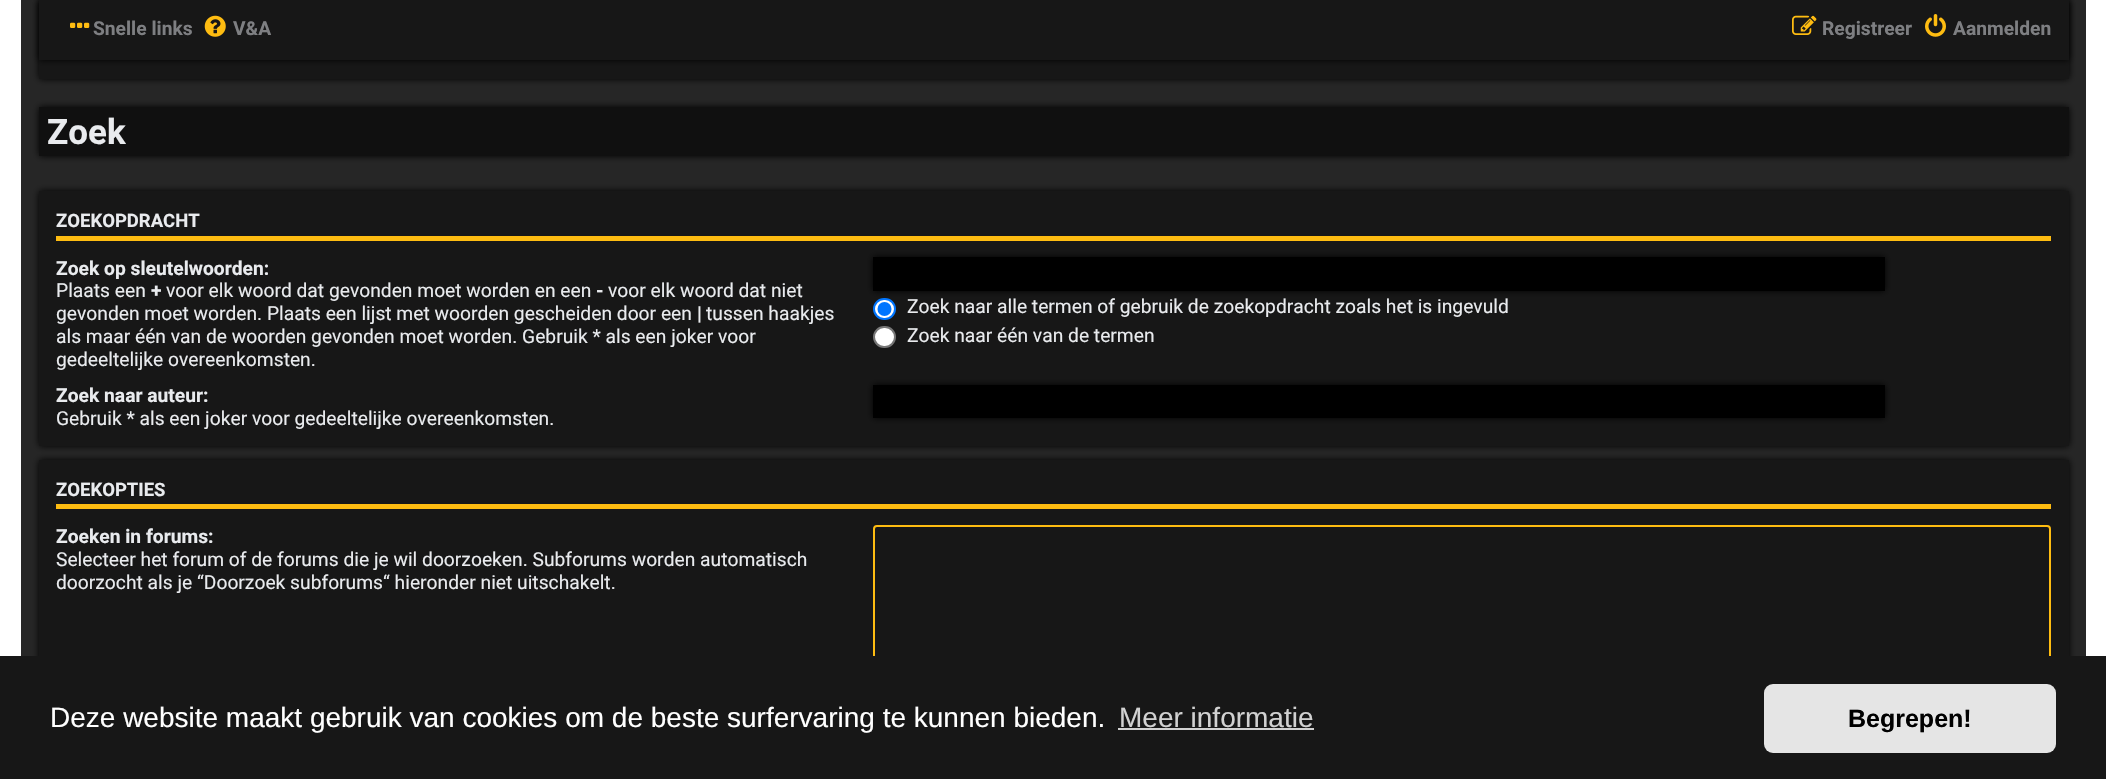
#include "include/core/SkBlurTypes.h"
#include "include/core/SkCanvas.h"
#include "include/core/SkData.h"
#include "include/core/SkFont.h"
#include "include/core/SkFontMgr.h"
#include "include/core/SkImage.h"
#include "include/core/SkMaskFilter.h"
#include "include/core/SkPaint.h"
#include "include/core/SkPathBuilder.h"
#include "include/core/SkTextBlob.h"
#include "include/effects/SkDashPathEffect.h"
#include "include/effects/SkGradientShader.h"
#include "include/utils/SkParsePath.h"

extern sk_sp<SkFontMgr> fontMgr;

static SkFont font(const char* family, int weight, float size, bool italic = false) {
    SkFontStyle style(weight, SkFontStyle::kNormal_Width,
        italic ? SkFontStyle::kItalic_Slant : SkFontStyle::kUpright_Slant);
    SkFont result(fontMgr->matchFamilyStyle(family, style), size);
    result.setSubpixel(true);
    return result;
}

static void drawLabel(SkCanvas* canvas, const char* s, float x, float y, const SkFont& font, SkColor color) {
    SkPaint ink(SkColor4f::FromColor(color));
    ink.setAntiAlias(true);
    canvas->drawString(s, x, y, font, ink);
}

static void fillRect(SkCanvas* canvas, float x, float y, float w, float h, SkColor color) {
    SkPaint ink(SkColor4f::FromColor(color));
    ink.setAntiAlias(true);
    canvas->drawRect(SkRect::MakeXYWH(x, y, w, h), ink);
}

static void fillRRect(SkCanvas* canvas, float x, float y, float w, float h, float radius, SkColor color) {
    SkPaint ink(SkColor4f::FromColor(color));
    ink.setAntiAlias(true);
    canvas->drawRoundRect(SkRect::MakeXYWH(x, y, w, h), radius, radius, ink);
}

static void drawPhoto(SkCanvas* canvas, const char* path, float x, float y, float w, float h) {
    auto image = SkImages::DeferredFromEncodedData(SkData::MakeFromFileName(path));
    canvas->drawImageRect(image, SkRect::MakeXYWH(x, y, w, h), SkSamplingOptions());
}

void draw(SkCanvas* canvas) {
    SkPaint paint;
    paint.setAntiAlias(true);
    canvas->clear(0xFFFFFFFF);
    fillRect(canvas, 21, 0, 2065, 656, 0xFF262626);
    paint.setColor(0xFF000000);
    paint.setMaskFilter(SkMaskFilter::MakeBlur(kNormal_SkBlurStyle, 3.5f));
    canvas->drawRect(SkRect::MakeXYWH(39, 0, 2030, 79), paint);
    paint.setMaskFilter(nullptr);
    fillRect(canvas, 39, 60, 2030, 19, 0xFF171717);
    paint.setMaskFilter(SkMaskFilter::MakeBlur(kNormal_SkBlurStyle, 3.5f));
    canvas->drawRect(SkRect::MakeXYWH(39, 0, 2030, 60), paint);
    paint.setMaskFilter(nullptr);
    fillRect(canvas, 39, 0, 2030, 60, 0xFF171717);
    drawPhoto(canvas, "assets/img1.png", 70, 22, 20, 6);
    SkFont font1 = font("Roboto", 700, 19.25f);
    drawLabel(canvas, "Snelle links", 93, 35, font1, 0xFF7E7F82);
    drawPhoto(canvas, "assets/img2.png", 204, 15, 22, 22);
    drawLabel(canvas, "V&A", 233, 35, font1, 0xFF7E7F82);
    drawPhoto(canvas, "assets/img3.png", 1792, 15, 25, 20);
    drawLabel(canvas, "Registreer", 1822, 35, font1, 0xFF7E7F82);
    drawPhoto(canvas, "assets/img4.png", 1925, 14, 21, 23);
    drawLabel(canvas, "Aanmelden", 1953, 35, font1, 0xFF7E7F82);
    paint.setMaskFilter(SkMaskFilter::MakeBlur(kNormal_SkBlurStyle, 3.5f));
    canvas->drawRect(SkRect::MakeXYWH(39, 107, 2030, 49), paint);
    paint.setMaskFilter(nullptr);
    fillRect(canvas, 39, 107, 2030, 49, 0xFF101010);
    SkFont font2 = font("Roboto", 700, 35);
    drawLabel(canvas, "Zoek", 47, 144, font2, 0xFFE9EBEE);
    paint.setMaskFilter(SkMaskFilter::MakeBlur(kNormal_SkBlurStyle, 3.5f));
    canvas->drawRect(SkRect::MakeXYWH(39, 191, 2030, 255), paint);
    paint.setMaskFilter(nullptr);
    fillRect(canvas, 39, 191, 2030, 255, 0xFF171717);
    fillRect(canvas, 56, 236, 1995, 5, 0xFFFEBC11);
    SkFont font3 = font("Roboto", 700, 18.5f);
    drawLabel(canvas, "ZOEKOPDRACHT", 56, 227, font3, 0xFFE9EBEE);
    drawLabel(canvas, "Zoek op sleutelwoorden:", 56, 275, font1, 0xFFE9EBEE);
    SkFont font4 = font("Roboto", 400, 19.25f);
    drawLabel(canvas, "Plaats een", 56, 297, font4, 0xFFE9EBEE);
    drawLabel(canvas, "+", 151, 297, font1, 0xFFE9EBEE);
    drawLabel(canvas, "voor elk woord dat gevonden moet worden en een", 166, 297, font4, 0xFFE9EBEE);
    drawLabel(canvas, "-", 596, 297, font1, 0xFFE9EBEE);
    drawLabel(canvas, "voor elk woord dat niet", 608, 297, font4, 0xFFE9EBEE);
    drawLabel(canvas, "gevonden moet worden. Plaats een lijst met woorden gescheiden door een", 56, 320, font4, 0xFFE9EBEE);
    drawLabel(canvas, "|", 697, 320, font1, 0xFFE9EBEE);
    drawLabel(canvas, "tussen haakjes", 706, 320, font4, 0xFFE9EBEE);
    drawLabel(canvas, "als maar één van de woorden gevonden moet worden. Gebruik * als een joker voor", 56, 343, font4, 0xFFE9EBEE);
    drawLabel(canvas, "gedeeltelijke overeenkomsten.", 56, 366, font4, 0xFFE9EBEE);
    paint.setMaskFilter(SkMaskFilter::MakeBlur(kNormal_SkBlurStyle, 3.5f));
    canvas->drawRect(SkRect::MakeXYWH(873, 257, 1012, 34), paint);
    paint.setMaskFilter(nullptr);
    fillRect(canvas, 873, 257, 1012, 34, 0xFF000000);
    paint.setColor(0xFFFFFFFF);
    canvas->drawRoundRect(SkRect::MakeXYWH(874, 299, 21, 20), 10, 10, paint);
    paint.setStroke(true);
    paint.setStrokeWidth(2);
    paint.setColor(0xFF0075FF);
    canvas->drawRoundRect(SkRect::MakeXYWH(874, 299, 21, 20), 10, 10, paint);
    paint.setStroke(false);
    canvas->drawCircle(884.5f, 309, 7, paint);
    drawLabel(canvas, "Zoek naar alle termen of gebruik de zoekopdracht zoals het is ingevuld", 907, 313, font4, 0xFFE9EBEE);
    paint.setColor(0xFFFFFFFF);
    canvas->drawRoundRect(SkRect::MakeXYWH(874, 327, 21, 20), 10, 10, paint);
    paint.setStroke(true);
    paint.setColor(0xFF767676);
    canvas->drawRoundRect(SkRect::MakeXYWH(874, 327, 21, 20), 10, 10, paint);
    drawLabel(canvas, "Zoek naar één van de termen", 907, 342, font4, 0xFFE9EBEE);
    drawLabel(canvas, "Zoek naar auteur:", 56, 402, font1, 0xFFE9EBEE);
    drawLabel(canvas, "Gebruik * als een joker voor gedeeltelijke overeenkomsten.", 56, 425, font4, 0xFFE9EBEE);
    paint.setStroke(false);
    paint.setColor(0xFF000000);
    paint.setMaskFilter(SkMaskFilter::MakeBlur(kNormal_SkBlurStyle, 3.5f));
    canvas->drawRect(SkRect::MakeXYWH(873, 385, 1012, 33), paint);
    paint.setMaskFilter(nullptr);
    fillRect(canvas, 873, 385, 1012, 33, 0xFF000000);
    paint.setMaskFilter(SkMaskFilter::MakeBlur(kNormal_SkBlurStyle, 3.5f));
    canvas->drawRect(SkRect::MakeXYWH(39, 460, 2030, 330), paint);
    paint.setMaskFilter(nullptr);
    fillRect(canvas, 39, 460, 2030, 196, 0xFF171717);
    fillRect(canvas, 56, 504, 1995, 5, 0xFFFEBC11);
    drawLabel(canvas, "ZOEKOPTIES", 56, 496, font3, 0xFFE9EBEE);
    drawLabel(canvas, "Zoeken in forums:", 56, 543, font1, 0xFFE9EBEE);
    drawLabel(canvas, "Selecteer het forum of de forums die je wil doorzoeken. Subforums worden automatisch", 56, 566, font4, 0xFFE9EBEE);
    drawLabel(canvas, "doorzocht als je “Doorzoek subforums“ hieronder niet uitschakelt.", 56, 589, font4, 0xFFE9EBEE);
    paint.setStroke(true);
    paint.setColor(0xFFFEBC11);
    canvas->drawRoundRect(SkRect::MakeXYWH(874, 526, 1176, 205), 3, 3, paint);
    fillRect(canvas, 0, 656, 2106, 123, 0xFF171717);
    SkFont font5 = font("Liberation Sans", 400, 28);
    drawLabel(canvas, "Deze website maakt gebruik van cookies om de beste surfervaring te kunnen bieden.", 50, 727, font5, 0xFFFFFFFF);
    drawLabel(canvas, "Meer informatie", 1119, 727, font5, 0xFFD1D1D1);
    fillRect(canvas, 1118, 728, 196, 2, 0xFFD1D1D1);
    fillRRect(canvas, 1764, 684, 292, 69, 9, 0xFFE5E5E5);
    SkFont font6 = font("Liberation Sans", 700, 25);
    drawLabel(canvas, "Begrepen!", 1848, 727, font6, 0xFF000000);
}
